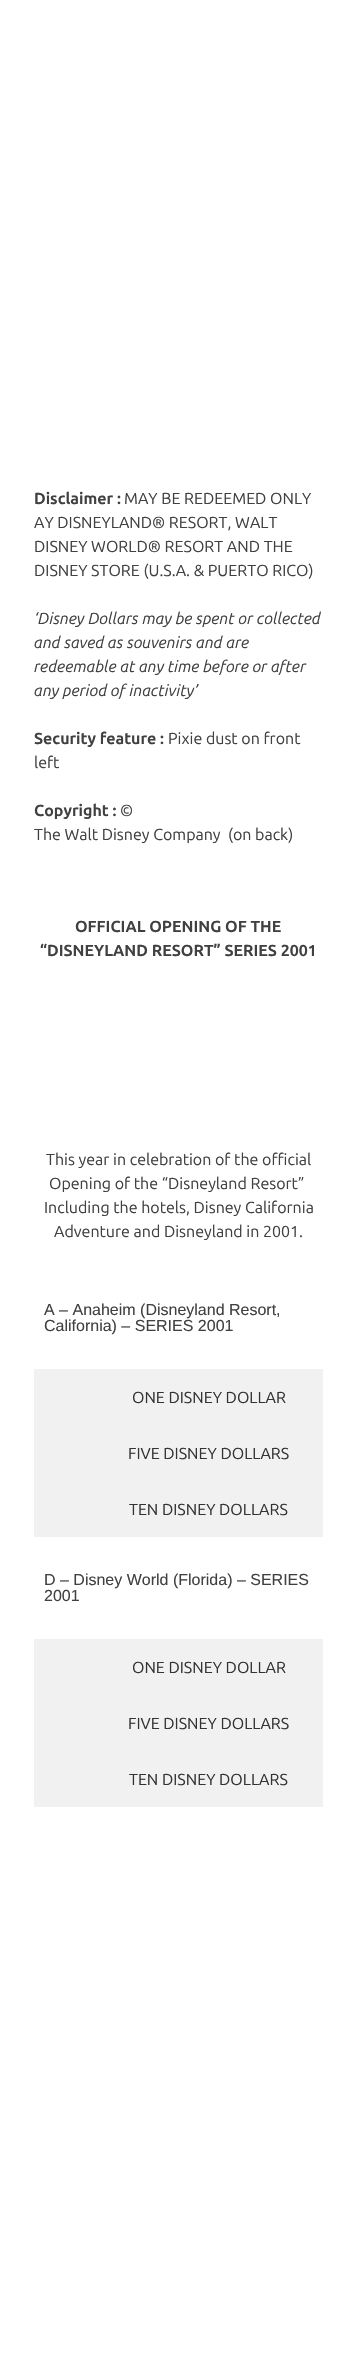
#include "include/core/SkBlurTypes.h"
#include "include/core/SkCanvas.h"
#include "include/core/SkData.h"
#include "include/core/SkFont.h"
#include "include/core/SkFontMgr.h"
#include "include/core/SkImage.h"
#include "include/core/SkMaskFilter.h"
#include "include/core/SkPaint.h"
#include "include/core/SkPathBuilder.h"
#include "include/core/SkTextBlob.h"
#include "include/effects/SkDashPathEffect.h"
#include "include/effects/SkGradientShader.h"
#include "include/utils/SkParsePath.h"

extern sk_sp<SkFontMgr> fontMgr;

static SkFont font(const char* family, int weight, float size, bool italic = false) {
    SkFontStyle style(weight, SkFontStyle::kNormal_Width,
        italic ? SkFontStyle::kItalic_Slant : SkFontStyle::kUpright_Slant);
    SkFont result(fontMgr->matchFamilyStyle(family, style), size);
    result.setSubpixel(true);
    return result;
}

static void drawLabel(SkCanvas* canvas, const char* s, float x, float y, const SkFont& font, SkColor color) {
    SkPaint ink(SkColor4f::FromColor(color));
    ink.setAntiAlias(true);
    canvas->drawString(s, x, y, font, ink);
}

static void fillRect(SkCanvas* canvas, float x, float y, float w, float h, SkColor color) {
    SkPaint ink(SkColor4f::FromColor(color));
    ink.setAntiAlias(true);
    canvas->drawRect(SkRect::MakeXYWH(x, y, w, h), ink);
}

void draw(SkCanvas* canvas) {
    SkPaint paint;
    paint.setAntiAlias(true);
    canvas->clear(0xFFFFFFFF);
    SkFont font1 = font("Ubuntu", 700, 16);
    drawLabel(canvas, "Disclaimer :", 34, 504, font1, 0xFF404040);
    SkFont font2 = font("Ubuntu", 400, 16);
    drawLabel(canvas, "MAY BE REDEEMED ONLY", 124, 504, font2, 0xFF404040);
    drawLabel(canvas, "AY DISNEYLAND® RESORT, WALT", 34, 528, font2, 0xFF404040);
    drawLabel(canvas, "DISNEY WORLD® RESORT AND THE", 34, 552, font2, 0xFF404040);
    drawLabel(canvas, "DISNEY STORE (U.S.A. & PUERTO RICO)", 34, 576, font2, 0xFF404040);
    SkFont font3 = font("Ubuntu", 400, 16, true);
    drawLabel(canvas, "‘Disney Dollars may be spent or collected", 34, 624, font3, 0xFF404040);
    drawLabel(canvas, "and saved as souvenirs and are", 34, 648, font3, 0xFF404040);
    drawLabel(canvas, "redeemable at any time before or after", 34, 672, font3, 0xFF404040);
    drawLabel(canvas, "any period of inactivity’", 34, 696, font3, 0xFF404040);
    drawLabel(canvas, "Security feature :", 34, 744, font1, 0xFF404040);
    drawLabel(canvas, "Pixie dust on front", 168, 744, font2, 0xFF404040);
    drawLabel(canvas, "left", 34, 768, font2, 0xFF404040);
    drawLabel(canvas, "Copyright :", 34, 816, font1, 0xFF404040);
    drawLabel(canvas, "©", 120, 816, font2, 0xFF404040);
    drawLabel(canvas, "The Walt Disney Company  (on back)", 34, 840, font2, 0xFF404040);
    drawLabel(canvas, "OFFICIAL OPENING OF THE", 75, 932, font1, 0xFF404040);
    drawLabel(canvas, "“DISNEYLAND RESORT” SERIES 2001", 40, 956, font1, 0xFF404040);
    drawLabel(canvas, "This year in celebration of the official", 46, 1165, font2, 0xFF404040);
    drawLabel(canvas, "Opening of the “Disneyland Resort”", 49, 1189, font2, 0xFF404040);
    drawLabel(canvas, "Including the hotels, Disney California", 44, 1213, font2, 0xFF404040);
    drawLabel(canvas, "Adventure and Disneyland in 2001.", 54, 1237, font2, 0xFF404040);
    SkFont font4 = font("Liberation Sans", 400, 16);
    drawLabel(canvas, "A – Anaheim (Disneyland Resort,", 44, 1315, font4, 0xFF404040);
    drawLabel(canvas, "California) – SERIES 2001", 44, 1331, font4, 0xFF404040);
    fillRect(canvas, 34, 1369, 289, 168, 0xFFF1F1F1);
    drawLabel(canvas, "ONE DISNEY DOLLAR", 132, 1403, font2, 0xFF333333);
    drawLabel(canvas, "FIVE DISNEY DOLLARS", 128, 1459, font2, 0xFF333333);
    drawLabel(canvas, "TEN DISNEY DOLLARS", 129, 1515, font2, 0xFF333333);
    drawLabel(canvas, "D – Disney World (Florida) – SERIES", 44, 1585, font4, 0xFF404040);
    drawLabel(canvas, "2001", 44, 1601, font4, 0xFF404040);
    fillRect(canvas, 34, 1639, 289, 168, 0xFFF1F1F1);
    drawLabel(canvas, "ONE DISNEY DOLLAR", 132, 1673, font2, 0xFF333333);
    drawLabel(canvas, "FIVE DISNEY DOLLARS", 128, 1729, font2, 0xFF333333);
    drawLabel(canvas, "TEN DISNEY DOLLARS", 129, 1785, font2, 0xFF333333);
}
